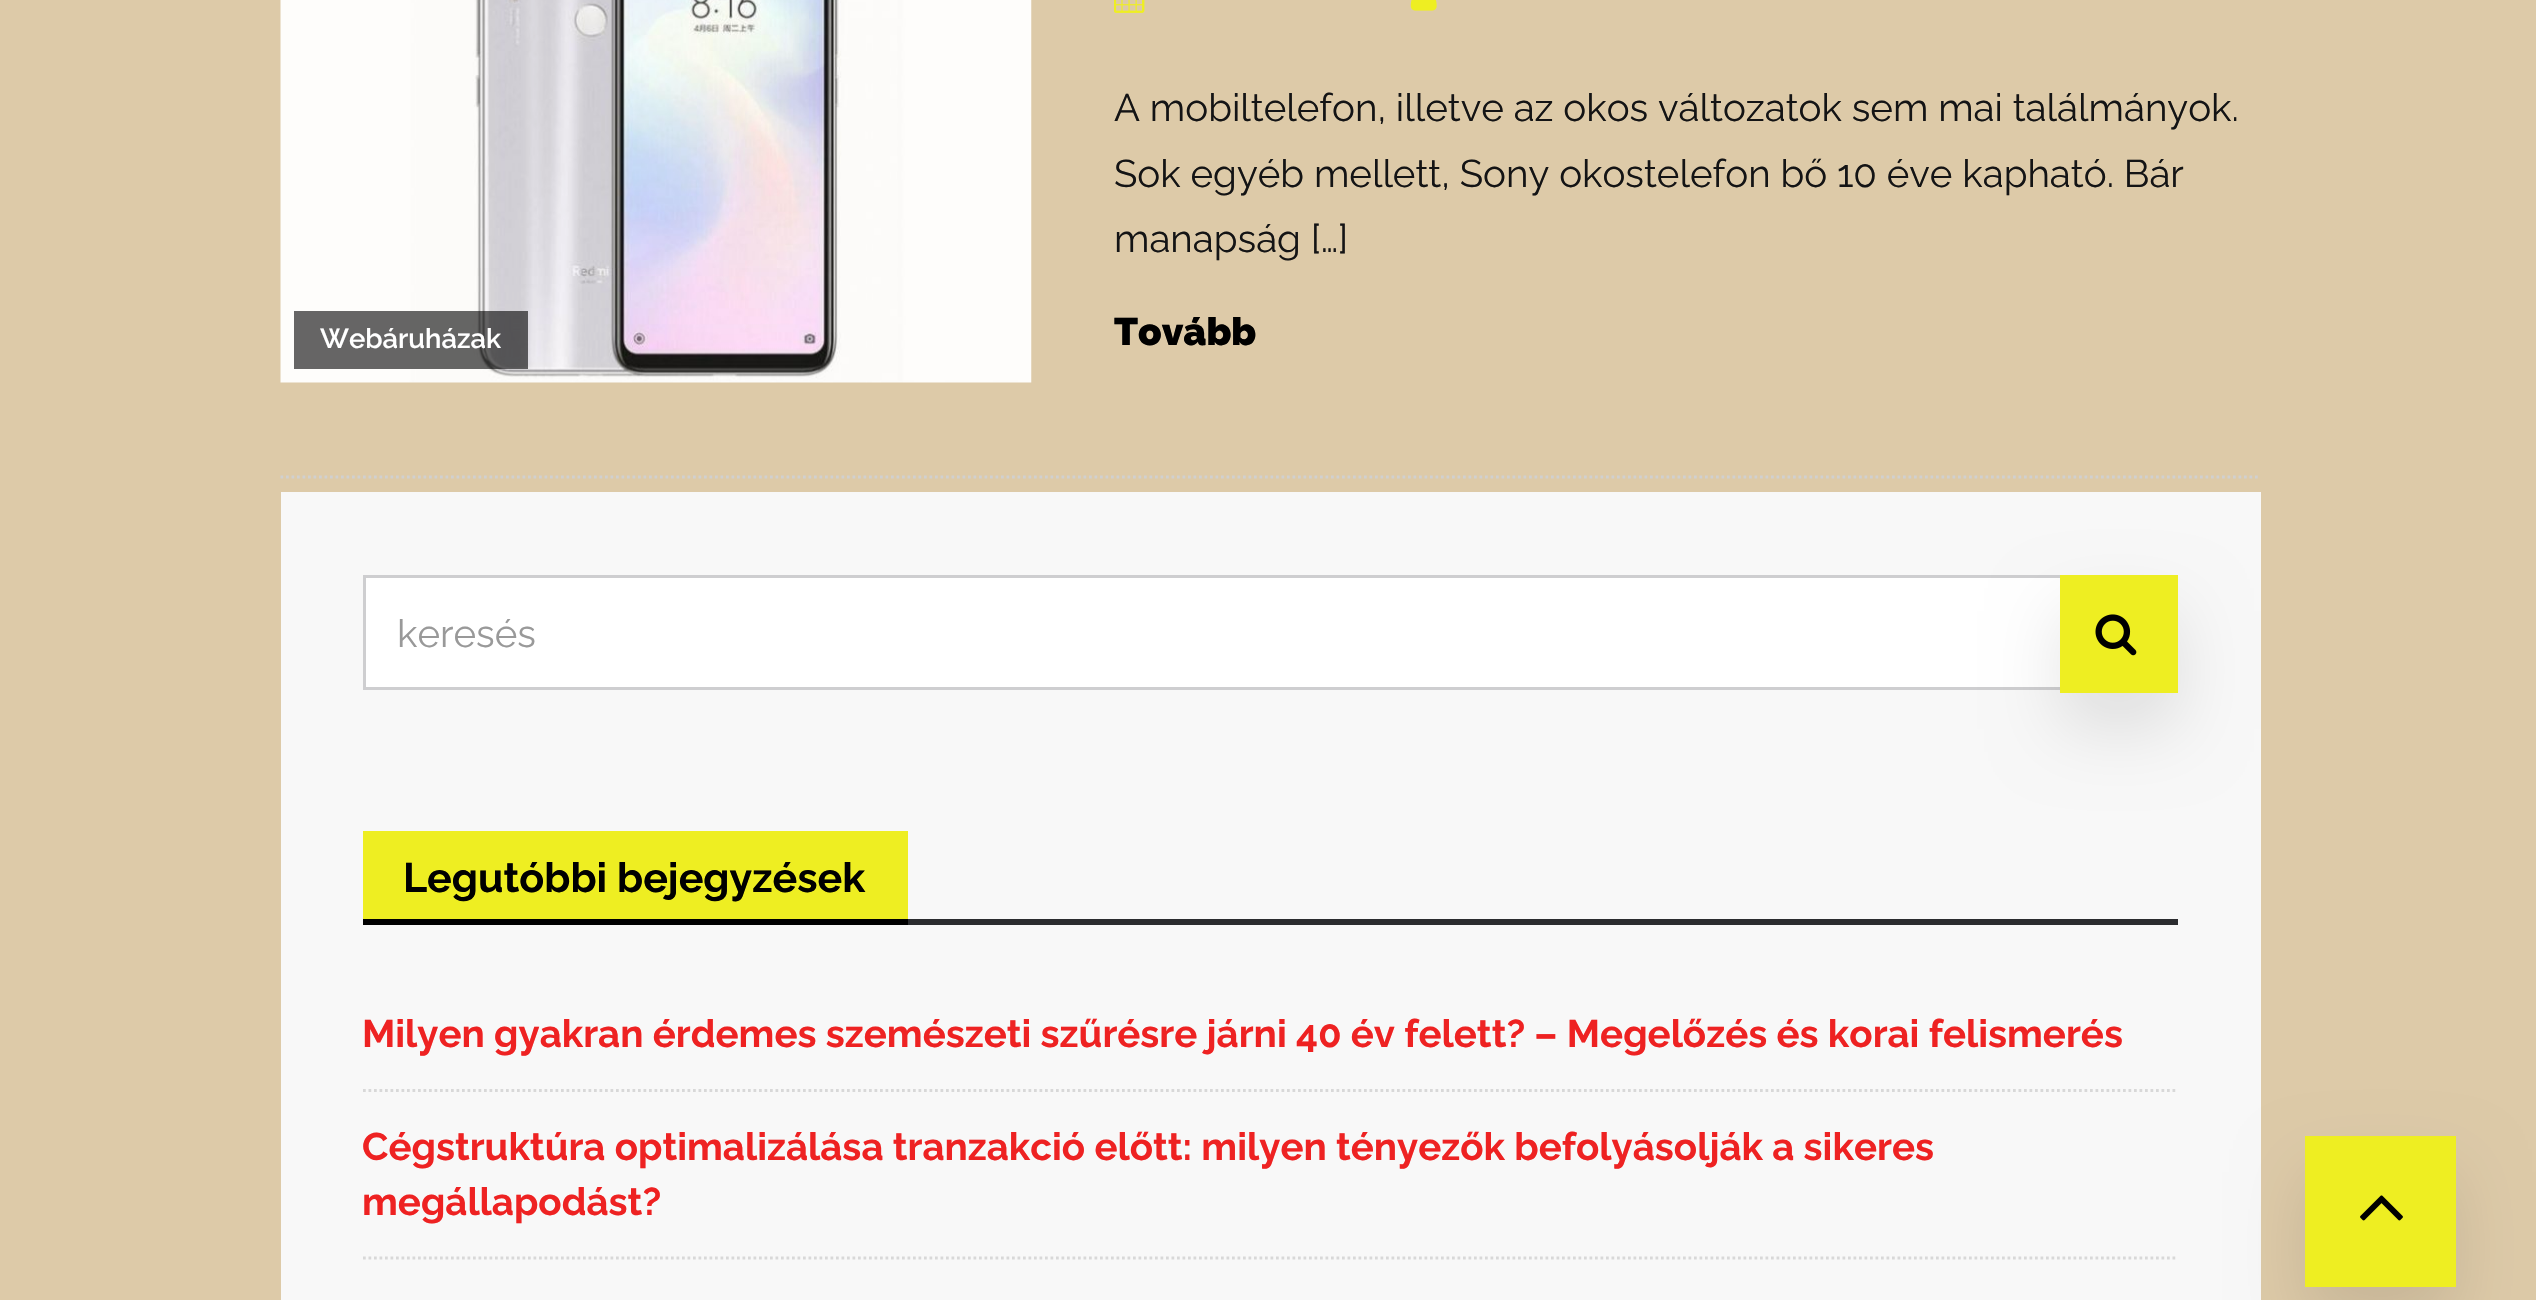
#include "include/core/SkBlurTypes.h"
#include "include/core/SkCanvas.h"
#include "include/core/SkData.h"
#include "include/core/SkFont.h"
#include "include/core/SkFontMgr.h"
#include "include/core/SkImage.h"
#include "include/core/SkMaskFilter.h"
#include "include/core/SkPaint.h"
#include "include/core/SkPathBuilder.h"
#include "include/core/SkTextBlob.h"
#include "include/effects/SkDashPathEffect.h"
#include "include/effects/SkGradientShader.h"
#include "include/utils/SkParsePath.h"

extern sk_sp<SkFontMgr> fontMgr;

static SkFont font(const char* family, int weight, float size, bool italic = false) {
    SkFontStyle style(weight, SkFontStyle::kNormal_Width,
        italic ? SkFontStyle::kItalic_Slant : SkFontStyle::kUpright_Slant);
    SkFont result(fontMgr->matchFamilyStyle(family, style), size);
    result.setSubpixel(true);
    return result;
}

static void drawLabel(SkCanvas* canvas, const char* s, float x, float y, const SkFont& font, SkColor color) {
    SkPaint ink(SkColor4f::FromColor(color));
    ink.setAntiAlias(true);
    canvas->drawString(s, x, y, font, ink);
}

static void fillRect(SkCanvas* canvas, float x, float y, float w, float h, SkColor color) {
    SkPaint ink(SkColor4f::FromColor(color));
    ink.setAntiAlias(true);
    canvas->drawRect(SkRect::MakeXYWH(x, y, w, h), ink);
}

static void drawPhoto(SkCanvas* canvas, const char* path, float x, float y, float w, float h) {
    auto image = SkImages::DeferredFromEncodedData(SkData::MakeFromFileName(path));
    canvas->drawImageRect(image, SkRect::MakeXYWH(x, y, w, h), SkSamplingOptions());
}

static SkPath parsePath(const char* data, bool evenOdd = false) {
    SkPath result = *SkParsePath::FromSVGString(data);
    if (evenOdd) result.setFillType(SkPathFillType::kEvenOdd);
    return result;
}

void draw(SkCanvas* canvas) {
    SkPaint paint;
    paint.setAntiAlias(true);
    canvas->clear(0xFFDDCAA8);
    paint.setStroke(true);
    paint.setStrokeWidth(2.8f);
    paint.setColor(0xFFD0D0D0);
    paint.setPathEffect(SkDashPathEffect::Make({{2.75f, 2.75f}}, 0));
    canvas->drawPath(parsePath("M280.5 477H2260.5"), paint);
    paint.setPathEffect(nullptr);
    drawPhoto(canvas, "assets/img1.png", 280, 0, 752, 383);
    fillRect(canvas, 294, 311, 234, 58, 0x99000000);
    SkFont font1 = font("Raleway", 600, 27.5f);
    drawLabel(canvas, "Webáruházak", 320, 348, font1, 0xFFFFFFFF);
    drawPhoto(canvas, "assets/img2.png", 1114, 0, 31, 13);
    drawPhoto(canvas, "assets/img3.png", 1410, 0, 27, 11);
    SkFont font2 = font("Raleway", 400, 38.5f);
    drawLabel(canvas, "A mobiltelefon, illetve az okos változatok sem mai találmányok.", 1114, 121, font2, 0xFF141415);
    drawLabel(canvas, "Sok egyéb mellett, Sony okostelefon bő 10 éve kapható. Bár", 1114, 187, font2, 0xFF141415);
    drawLabel(canvas, "manapság […]", 1114, 252, font2, 0xFF141415);
    SkFont font3 = font("Raleway", 900, 38.5f);
    drawLabel(canvas, "Tovább", 1114, 345, font3, 0xFF000000);
    fillRect(canvas, 281, 492, 1980, 808, 0xFFF8F8F8);
    paint.setStroke(false);
    paint.setColor(0xFFFFFFFF);
    canvas->drawRect(SkRect::MakeXYWH(364.5f, 576.5f, 1697, 112), paint);
    paint.setStroke(true);
    paint.setStrokeWidth(3);
    paint.setColor(0xFFCECED0);
    canvas->drawRect(SkRect::MakeXYWH(364.5f, 576.5f, 1697, 112), paint);
    drawLabel(canvas, "keresés", 397, 647, font2, 0xFF999999);
    paint.setStroke(false);
    paint.setColor(0x1A000000);
    paint.setMaskFilter(SkMaskFilter::MakeBlur(kNormal_SkBlurStyle, 34.5f));
    canvas->drawRect(SkRect::MakeXYWH(2060, 611, 118, 118), paint);
    paint.setMaskFilter(nullptr);
    fillRect(canvas, 2060, 575, 118, 118, 0xFFEEEE22);
    drawPhoto(canvas, "assets/img4.png", 2095, 614, 42, 42);
    fillRect(canvas, 908, 919, 1270, 6, 0xFF2B2C2F);
    fillRect(canvas, 363, 831, 545, 88, 0xFFEEEE22);
    fillRect(canvas, 363, 919, 545, 6, 0xFF000000);
    SkFont font4 = font("Raleway", 700, 41.25f);
    drawLabel(canvas, "Legutóbbi bejegyzések", 403, 892, font4, 0xFF000000);
    paint.setStroke(true);
    paint.setStrokeWidth(2.8f);
    paint.setColor(0xFFD8D8D8);
    paint.setPathEffect(SkDashPathEffect::Make({{2.75f, 2.75f}}, 0));
    canvas->drawPath(parsePath("M363 1090.5H2178"), paint);
    paint.setPathEffect(nullptr);
    SkFont font5 = font("Raleway", 700, 38.5f);
    drawLabel(canvas, "Milyen gyakran érdemes szemészeti szűrésre járni 40 év felett? – Megelőzés és korai felismerés", 362, 1047, font5, 0xFFEE2222);
    paint.setPathEffect(SkDashPathEffect::Make({{2.75f, 2.75f}}, 0));
    canvas->drawPath(parsePath("M363 1258H2178"), paint);
    paint.setPathEffect(nullptr);
    drawLabel(canvas, "Cégstruktúra optimalizálása tranzakció előtt: milyen tényezők befolyásolják a sikeres", 362, 1160, font5, 0xFFEE2222);
    drawLabel(canvas, "megállapodást?", 362, 1215, font5, 0xFFEE2222);
    paint.setStroke(false);
    paint.setColor(0x1A000000);
    paint.setMaskFilter(SkMaskFilter::MakeBlur(kNormal_SkBlurStyle, 34.5f));
    canvas->drawRect(SkRect::MakeXYWH(2305, 1172, 151, 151), paint);
    paint.setMaskFilter(nullptr);
    fillRect(canvas, 2305, 1136, 151, 151, 0xFFEEEE22);
    drawPhoto(canvas, "assets/img5.png", 2360, 1195, 43, 26);
}
